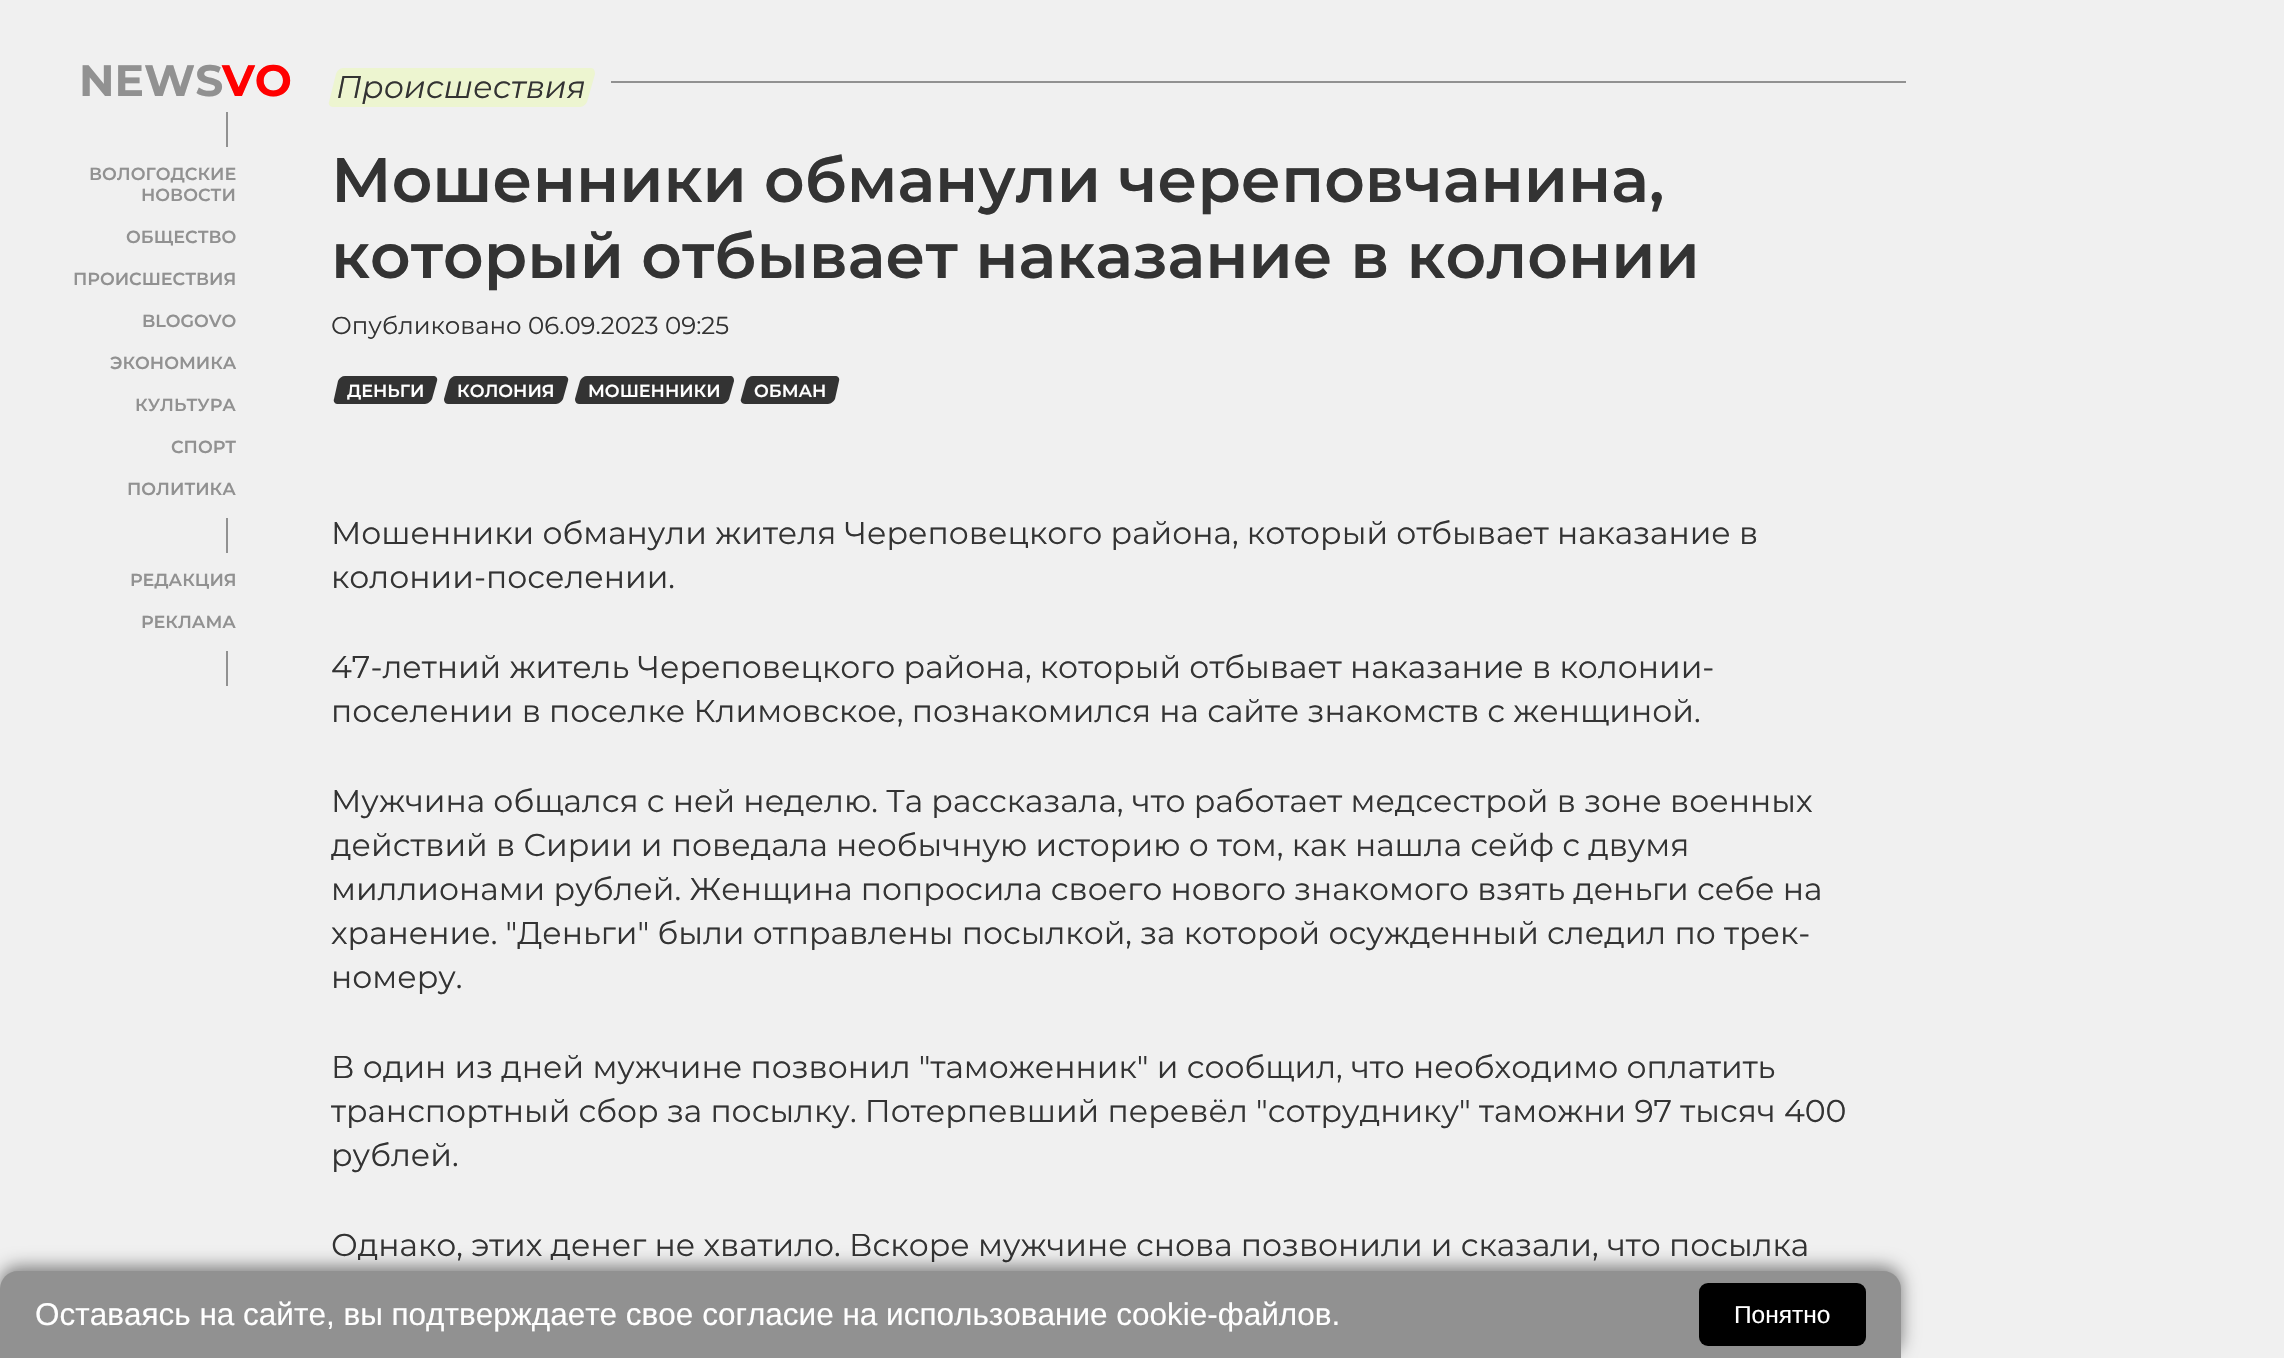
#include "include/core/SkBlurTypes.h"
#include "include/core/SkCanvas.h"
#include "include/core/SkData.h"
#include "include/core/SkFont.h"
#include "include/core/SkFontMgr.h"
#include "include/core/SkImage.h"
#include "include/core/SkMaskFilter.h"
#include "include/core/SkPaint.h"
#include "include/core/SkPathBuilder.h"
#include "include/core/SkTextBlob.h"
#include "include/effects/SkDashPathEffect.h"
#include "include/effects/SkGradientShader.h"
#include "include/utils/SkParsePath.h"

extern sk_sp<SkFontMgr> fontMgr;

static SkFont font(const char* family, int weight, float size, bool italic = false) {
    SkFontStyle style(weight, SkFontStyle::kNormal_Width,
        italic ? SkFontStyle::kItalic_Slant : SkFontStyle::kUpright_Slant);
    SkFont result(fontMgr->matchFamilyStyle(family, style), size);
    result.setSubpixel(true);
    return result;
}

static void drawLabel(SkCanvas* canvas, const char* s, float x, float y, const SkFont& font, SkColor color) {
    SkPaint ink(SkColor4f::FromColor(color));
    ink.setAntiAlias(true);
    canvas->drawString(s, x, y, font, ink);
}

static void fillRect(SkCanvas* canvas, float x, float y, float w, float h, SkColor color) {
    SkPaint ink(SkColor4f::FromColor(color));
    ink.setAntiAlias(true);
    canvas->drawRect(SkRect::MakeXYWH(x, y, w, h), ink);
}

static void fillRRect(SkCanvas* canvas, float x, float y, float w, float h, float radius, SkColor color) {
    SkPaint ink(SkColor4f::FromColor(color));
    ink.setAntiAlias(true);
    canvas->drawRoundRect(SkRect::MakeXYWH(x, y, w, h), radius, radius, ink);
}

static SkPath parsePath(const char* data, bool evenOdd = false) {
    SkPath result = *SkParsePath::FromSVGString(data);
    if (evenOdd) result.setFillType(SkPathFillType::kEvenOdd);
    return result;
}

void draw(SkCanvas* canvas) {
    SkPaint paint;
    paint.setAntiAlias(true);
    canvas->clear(0xFFF0F0F0);
    SkFont font1 = font("Montserrat", 700, 44);
    drawLabel(canvas, "NEWS", 79, 96, font1, 0xFF919191);
    drawLabel(canvas, "VO", 222, 96, font1, 0xFFFF0000);
    fillRect(canvas, 226, 112, 2, 35, 0xFF919191);
    SkFont font2 = font("Montserrat", 600, 17.5f);
    drawLabel(canvas, "ВОЛОГОДСКИЕ", 89, 180, font2, 0xFF919191);
    drawLabel(canvas, "НОВОСТИ", 141, 201, font2, 0xFF919191);
    drawLabel(canvas, "ОБЩЕСТВО", 126, 243, font2, 0xFF919191);
    drawLabel(canvas, "ПРОИСШЕСТВИЯ", 73, 285, font2, 0xFF919191);
    drawLabel(canvas, "BLOGOVO", 142, 327, font2, 0xFF919191);
    drawLabel(canvas, "ЭКОНОМИКА", 110, 369, font2, 0xFF919191);
    drawLabel(canvas, "КУЛЬТУРА", 135, 411, font2, 0xFF919191);
    drawLabel(canvas, "СПОРТ", 171, 453, font2, 0xFF919191);
    drawLabel(canvas, "ПОЛИТИКА", 127, 495, font2, 0xFF919191);
    fillRect(canvas, 226, 518, 2, 35, 0xFF919191);
    drawLabel(canvas, "РЕДАКЦИЯ", 130, 586, font2, 0xFF919191);
    drawLabel(canvas, "РЕКЛАМА", 141, 628, font2, 0xFF919191);
    fillRect(canvas, 226, 651, 2, 35, 0xFF919191);
    paint.setColor(0xFFEDF5D0);
    canvas->drawPath(parsePath("M343 68H591C594 68 595 71 595 74L587 102C586 104 583 107 580 107H333C330 107 328 104 329 102L336 74C337 71 340 68 343 68Z"), paint);
    SkFont font3 = font("Montserrat", 400, 31.5f, true);
    drawLabel(canvas, "Происшествия", 336, 98, font3, 0xFF333333);
    fillRect(canvas, 611, 81, 1295, 2, 0xFF919191);
    SkFont font4 = font("Montserrat", 600, 63);
    drawLabel(canvas, "Мошенники обманули череповчанина,", 331, 202, font4, 0xFF333333);
    drawLabel(canvas, "который отбывает наказание в колонии", 331, 278, font4, 0xFF333333);
    SkFont font5 = font("Montserrat", 400, 24.5f);
    drawLabel(canvas, "Опубликовано 06.09.2023 09:25", 331, 334, font5, 0xFF333333);
    paint.setColor(0xFF333333);
    canvas->drawPath(parsePath("M345 376H433C436 376 438 378 437 381L432 399C431 401 428 404 425 404H337C335 404 333 401 334 399L338 381C339 378 342 376 345 376Z"), paint);
    drawLabel(canvas, "ДЕНЬГИ", 347, 397, font2, 0xFFFFFFFF);
    canvas->drawPath(parsePath("M456 376H564C567 376 569 378 568 381L563 399C562 401 559 404 556 404H448C445 404 444 401 444 399L449 381C450 378 453 376 456 376Z"), paint);
    drawLabel(canvas, "КОЛОНИЯ", 457, 397, font2, 0xFFFFFFFF);
    canvas->drawPath(parsePath("M587 376H730C733 376 734 378 734 381L729 399C728 401 725 404 722 404H579C576 404 575 401 575 399L580 381C581 378 584 376 587 376Z"), paint);
    drawLabel(canvas, "МОШЕННИКИ", 588, 397, font2, 0xFFFFFFFF);
    canvas->drawPath(parsePath("M753 376H835C838 376 840 378 839 381L835 399C834 401 831 404 828 404H745C742 404 740 401 741 399L746 381C747 378 750 376 753 376Z"), paint);
    drawLabel(canvas, "ОБМАН", 754, 397, font2, 0xFFFFFFFF);
    SkFont font6 = font("Montserrat", 400, 31.5f);
    drawLabel(canvas, "Мошенники обманули жителя Череповецкого района, который отбывает наказание в", 331, 544, font6, 0xFF333333);
    drawLabel(canvas, "колонии-поселении.", 331, 588, font6, 0xFF333333);
    drawLabel(canvas, "47-летний житель Череповецкого района, который отбывает наказание в колонии-", 331, 678, font6, 0xFF333333);
    drawLabel(canvas, "поселении в поселке Климовское, познакомился на сайте знакомств с женщиной.", 331, 722, font6, 0xFF333333);
    drawLabel(canvas, "Мужчина общался с ней неделю. Та рассказала, что работает медсестрой в зоне военных", 331, 812, font6, 0xFF333333);
    drawLabel(canvas, "действий в Сирии и поведала необычную историю о том, как нашла сейф с двумя", 331, 856, font6, 0xFF333333);
    drawLabel(canvas, "миллионами рублей. Женщина попросила своего нового знакомого взять деньги себе на", 331, 900, font6, 0xFF333333);
    drawLabel(canvas, "хранение. \"Деньги\" были отправлены посылкой, за которой осужденный следил по трек-", 331, 944, font6, 0xFF333333);
    drawLabel(canvas, "номеру.", 331, 988, font6, 0xFF333333);
    drawLabel(canvas, "В один из дней мужчине позвонил \"таможенник\" и сообщил, что необходимо оплатить", 331, 1078, font6, 0xFF333333);
    drawLabel(canvas, "транспортный сбор за посылку. Потерпевший перевёл \"сотруднику\" таможни 97 тысяч 400", 331, 1122, font6, 0xFF333333);
    drawLabel(canvas, "рублей.", 331, 1166, font6, 0xFF333333);
    drawLabel(canvas, "Однако, этих денег не хватило. Вскоре мужчине снова позвонили и сказали, что посылка", 331, 1256, font6, 0xFF333333);
    paint.setColor(0x80000000);
    paint.setMaskFilter(SkMaskFilter::MakeBlur(kNormal_SkBlurStyle, 9));
    canvas->drawRoundRect(SkRect::MakeXYWH(0, 1267, 1901, 88), 18, 18, paint);
    paint.setMaskFilter(nullptr);
    paint.setColor(0xFF919191);
    canvas->drawPath(parsePath("M18 1271H1883C1893 1271 1901 1279 1901 1289V1358H0V1289C0 1279 8 1271 18 1271Z"), paint);
    SkFont font7 = font("Liberation Sans", 400, 31.5f);
    drawLabel(canvas, "Оставаясь на сайте, вы подтверждаете свое согласие на использование cookie-файлов.", 35, 1325, font7, 0xFFFFFFFF);
    fillRRect(canvas, 1699, 1283, 167, 63, 9, 0xFF000000);
    SkFont font8 = font("Liberation Sans", 400, 24.5f);
    drawLabel(canvas, "Понятно", 1734, 1323, font8, 0xFFFFFFFF);
}
